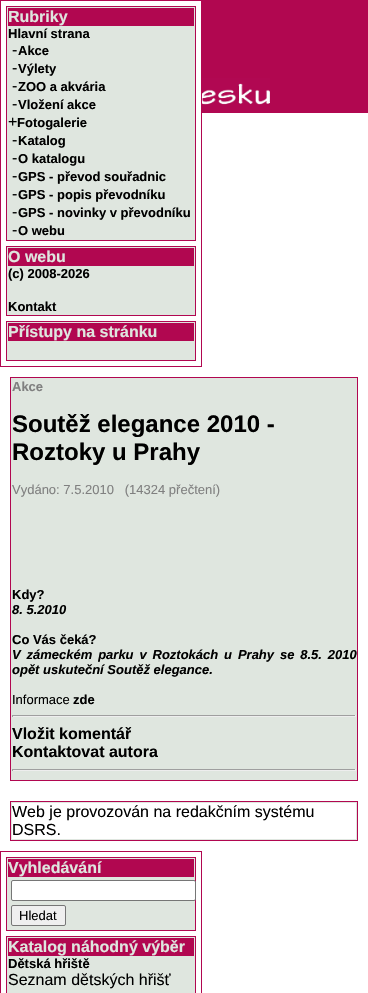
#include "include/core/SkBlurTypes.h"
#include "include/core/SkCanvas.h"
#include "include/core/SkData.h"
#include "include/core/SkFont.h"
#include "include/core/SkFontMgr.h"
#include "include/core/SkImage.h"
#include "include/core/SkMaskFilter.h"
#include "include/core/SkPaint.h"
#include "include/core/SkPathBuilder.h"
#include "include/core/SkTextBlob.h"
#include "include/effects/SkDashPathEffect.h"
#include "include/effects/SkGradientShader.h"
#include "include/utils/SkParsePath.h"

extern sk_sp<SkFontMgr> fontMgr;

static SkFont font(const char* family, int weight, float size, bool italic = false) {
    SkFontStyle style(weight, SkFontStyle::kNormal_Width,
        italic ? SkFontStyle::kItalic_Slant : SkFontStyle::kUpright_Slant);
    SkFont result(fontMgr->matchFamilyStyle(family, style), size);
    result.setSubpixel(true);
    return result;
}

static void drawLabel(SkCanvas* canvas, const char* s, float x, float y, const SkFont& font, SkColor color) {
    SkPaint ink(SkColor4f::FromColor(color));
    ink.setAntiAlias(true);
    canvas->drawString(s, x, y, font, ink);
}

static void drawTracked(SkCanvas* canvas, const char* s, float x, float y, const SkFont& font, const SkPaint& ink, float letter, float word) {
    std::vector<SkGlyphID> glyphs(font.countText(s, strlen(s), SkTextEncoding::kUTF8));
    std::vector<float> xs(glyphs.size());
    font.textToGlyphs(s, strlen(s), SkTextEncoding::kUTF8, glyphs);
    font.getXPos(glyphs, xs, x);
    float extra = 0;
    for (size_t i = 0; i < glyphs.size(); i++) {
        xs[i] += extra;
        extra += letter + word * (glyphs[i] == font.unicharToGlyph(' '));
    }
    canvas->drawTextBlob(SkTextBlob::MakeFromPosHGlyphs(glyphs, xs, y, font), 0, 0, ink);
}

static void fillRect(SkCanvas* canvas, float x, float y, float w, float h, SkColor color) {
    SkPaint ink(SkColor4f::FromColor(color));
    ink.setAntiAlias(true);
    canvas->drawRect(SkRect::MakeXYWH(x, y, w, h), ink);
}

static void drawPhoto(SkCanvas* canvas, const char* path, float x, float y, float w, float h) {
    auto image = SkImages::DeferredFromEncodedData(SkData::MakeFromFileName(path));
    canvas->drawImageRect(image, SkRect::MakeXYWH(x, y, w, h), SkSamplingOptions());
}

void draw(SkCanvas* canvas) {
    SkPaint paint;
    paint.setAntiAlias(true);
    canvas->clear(0xFFFFFFFF);
    paint.setStroke(true);
    paint.setStrokeWidth(1);
    paint.setColor(0xFFB10750);
    canvas->drawRect(SkRect::MakeXYWH(0.5f, 0.5f, 201, 366), paint);
    paint.setStroke(false);
    paint.setColor(0xFFDFE6DF);
    canvas->drawRect(SkRect::MakeXYWH(6.5f, 6.5f, 189, 234), paint);
    paint.setStroke(true);
    paint.setColor(0xFFB10750);
    canvas->drawRect(SkRect::MakeXYWH(6.5f, 6.5f, 189, 234), paint);
    fillRect(canvas, 8, 8, 186, 18, 0xFFB10750);
    SkFont font1 = font("Liberation Sans", 700, 16);
    drawLabel(canvas, "Rubriky", 8, 22, font1, 0xFFDFE6DF);
    SkFont font2 = font("Liberation Sans", 700, 13);
    drawLabel(canvas, "Hlavní strana", 8, 38, font2, 0xFF000000);
    SkFont font3 = font("Liberation Sans", 400, 16);
    drawLabel(canvas, "-", 12, 55, font3, 0xFF000000);
    drawLabel(canvas, "Akce", 18, 55, font2, 0xFF000000);
    drawLabel(canvas, "-", 12, 73, font3, 0xFF000000);
    drawLabel(canvas, "Výlety", 18, 73, font2, 0xFF000000);
    drawLabel(canvas, "-", 12, 91, font3, 0xFF000000);
    drawLabel(canvas, "ZOO a akvária", 18, 91, font2, 0xFF000000);
    drawLabel(canvas, "-", 12, 109, font3, 0xFF000000);
    drawLabel(canvas, "Vložení akce", 18, 109, font2, 0xFF000000);
    drawLabel(canvas, "+", 8, 127, font3, 0xFF000000);
    drawLabel(canvas, "Fotogalerie", 17, 127, font2, 0xFF000000);
    drawLabel(canvas, "-", 12, 145, font3, 0xFF000000);
    drawLabel(canvas, "Katalog", 18, 145, font2, 0xFF000000);
    drawLabel(canvas, "-", 12, 163, font3, 0xFF000000);
    drawLabel(canvas, "O katalogu", 18, 163, font2, 0xFF000000);
    drawLabel(canvas, "-", 12, 181, font3, 0xFF000000);
    drawLabel(canvas, "GPS - převod souřadnic", 18, 181, font2, 0xFF000000);
    drawLabel(canvas, "-", 12, 199, font3, 0xFF000000);
    drawLabel(canvas, "GPS - popis převodníku", 18, 199, font2, 0xFF000000);
    drawLabel(canvas, "-", 12, 217, font3, 0xFF000000);
    drawLabel(canvas, "GPS - novinky v převodníku", 18, 217, font2, 0xFF000000);
    drawLabel(canvas, "-", 12, 235, font3, 0xFF000000);
    drawLabel(canvas, "O webu", 18, 235, font2, 0xFF000000);
    paint.setStroke(false);
    paint.setColor(0xFFDFE6DF);
    canvas->drawRect(SkRect::MakeXYWH(6.5f, 246.5f, 189, 69), paint);
    paint.setStroke(true);
    paint.setColor(0xFFB10750);
    canvas->drawRect(SkRect::MakeXYWH(6.5f, 246.5f, 189, 69), paint);
    fillRect(canvas, 8, 248, 186, 18, 0xFFB10750);
    drawLabel(canvas, "O webu", 8, 262, font1, 0xFFDFE6DF);
    drawLabel(canvas, "(c) 2008-2026", 8, 278, font2, 0xFF000000);
    drawLabel(canvas, "Kontakt", 8, 311, font2, 0xFF000000);
    paint.setStroke(false);
    paint.setColor(0xFFDFE6DF);
    canvas->drawRect(SkRect::MakeXYWH(6.5f, 321.5f, 189, 39), paint);
    paint.setStroke(true);
    paint.setColor(0xFFB10750);
    canvas->drawRect(SkRect::MakeXYWH(6.5f, 321.5f, 189, 39), paint);
    fillRect(canvas, 8, 323, 186, 18, 0xFFB10750);
    drawLabel(canvas, "Přístupy na stránku", 8, 337, font1, 0xFFDFE6DF);
    fillRect(canvas, 202, 0, 166, 113, 0xFFB10750);
    drawPhoto(canvas, "assets/img1.png", 202, 78, 68, 35);
    paint.setStroke(false);
    paint.setColor(0xFFDFE6DF);
    canvas->drawRect(SkRect::MakeXYWH(10.5f, 377.5f, 347, 403), paint);
    paint.setStroke(true);
    paint.setColor(0xFFB10750);
    canvas->drawRect(SkRect::MakeXYWH(10.5f, 377.5f, 347, 403), paint);
    drawLabel(canvas, "Akce", 12, 391, font2, 0xFF808080);
    SkFont font4 = font("Liberation Sans", 700, 24);
    drawLabel(canvas, "Soutěž elegance 2010 -", 12, 432, font4, 0xFF000000);
    drawLabel(canvas, "Roztoky u Prahy", 12, 460, font4, 0xFF000000);
    SkFont font5 = font("Liberation Sans", 400, 13);
    drawLabel(canvas, "Vydáno: 7.5.2010   (14324 přečtení)", 12, 494, font5, 0xFF808080);
    drawLabel(canvas, "Kdy?", 12, 599, font2, 0xFF000000);
    SkFont font6 = font("Liberation Sans", 700, 13, true);
    drawLabel(canvas, "8. 5.2010", 12, 614, font6, 0xFF000000);
    drawLabel(canvas, "Co Vás čeká?", 12, 644, font2, 0xFF000000);
    paint.setStroke(false);
    paint.setColor(0xFF000000);
    drawTracked(canvas, "V zámeckém parku v Roztokách u Prahy se 8.5. 2010", 12, 659, font6, paint, 0, 2.25f);
    drawLabel(canvas, "opět uskuteční Soutěž elegance.", 12, 674, font6, 0xFF000000);
    drawLabel(canvas, "Informace", 12, 704, font5, 0xFF000000);
    drawLabel(canvas, "zde", 73, 704, font2, 0xFF000000);
    fillRect(canvas, 12, 715, 344, 1, 0xFF9F9F9F);
    fillRect(canvas, 355, 715, 1, 2, 0xFFEEEEEE);
    fillRect(canvas, 12, 716, 344, 1, 0xFFEEEEEE);
    fillRect(canvas, 12, 715, 1, 2, 0xFF9F9F9F);
    drawLabel(canvas, "Vložit komentář", 12, 739, font1, 0xFF000000);
    drawLabel(canvas, "Kontaktovat autora", 12, 757, font1, 0xFF000000);
    fillRect(canvas, 12, 769, 344, 1, 0xFF9F9F9F);
    fillRect(canvas, 355, 769, 1, 2, 0xFFEEEEEE);
    fillRect(canvas, 12, 770, 344, 1, 0xFFEEEEEE);
    fillRect(canvas, 12, 769, 1, 2, 0xFF9F9F9F);
    paint.setColor(0xFFDFE6DF);
    canvas->drawRect(SkRect::MakeXYWH(10.5f, 801.5f, 347, 39), paint);
    paint.setStroke(true);
    paint.setColor(0xFFB10750);
    canvas->drawRect(SkRect::MakeXYWH(10.5f, 801.5f, 347, 39), paint);
    fillRect(canvas, 12, 803, 344, 36, 0xFFFFFFFF);
    drawLabel(canvas, "Web je provozován na redakčním systému", 12, 817, font3, 0xFF000000);
    drawLabel(canvas, "DSRS.", 12, 835, font3, 0xFF000000);
    canvas->drawRect(SkRect::MakeXYWH(0.5f, 851.5f, 201, 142), paint);
    paint.setStroke(false);
    paint.setColor(0xFFDFE6DF);
    canvas->drawRect(SkRect::MakeXYWH(6.5f, 857.5f, 189, 73), paint);
    paint.setStroke(true);
    paint.setColor(0xFFB10750);
    canvas->drawRect(SkRect::MakeXYWH(6.5f, 857.5f, 189, 73), paint);
    fillRect(canvas, 8, 859, 186, 18, 0xFFB10750);
    drawLabel(canvas, "Vyhledávání", 8, 873, font1, 0xFFDFE6DF);
    paint.setStroke(false);
    paint.setColor(0xFFFFFFFF);
    canvas->drawRoundRect(SkRect::MakeXYWH(11.5f, 880.5f, 184, 20), 1.5f, 1.5f, paint);
    paint.setStroke(true);
    paint.setColor(0xFF767676);
    canvas->drawRoundRect(SkRect::MakeXYWH(11.5f, 880.5f, 184, 20), 1.5f, 1.5f, paint);
    paint.setStroke(false);
    paint.setColor(0xFFEFEFEF);
    canvas->drawRoundRect(SkRect::MakeXYWH(11.5f, 905.5f, 54, 20), 1.5f, 1.5f, paint);
    paint.setStroke(true);
    paint.setColor(0xFF767676);
    canvas->drawRoundRect(SkRect::MakeXYWH(11.5f, 905.5f, 54, 20), 1.5f, 1.5f, paint);
    drawLabel(canvas, "Hledat", 19, 920, font5, 0xFF000000);
    paint.setStroke(false);
    paint.setColor(0xFFDFE6DF);
    canvas->drawRect(SkRect::MakeXYWH(6.5f, 936.5f, 189, 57), paint);
    paint.setStroke(true);
    paint.setColor(0xFFB10750);
    canvas->drawRect(SkRect::MakeXYWH(6.5f, 936.5f, 189, 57), paint);
    fillRect(canvas, 8, 938, 186, 18, 0xFFB10750);
    drawLabel(canvas, "Katalog náhodný výběr", 8, 952, font1, 0xFFDFE6DF);
    drawLabel(canvas, "Dětská hřiště", 8, 968, font2, 0xFF000000);
    drawLabel(canvas, "Seznam dětských hřišť", 8, 985, font3, 0xFF000000);
}
